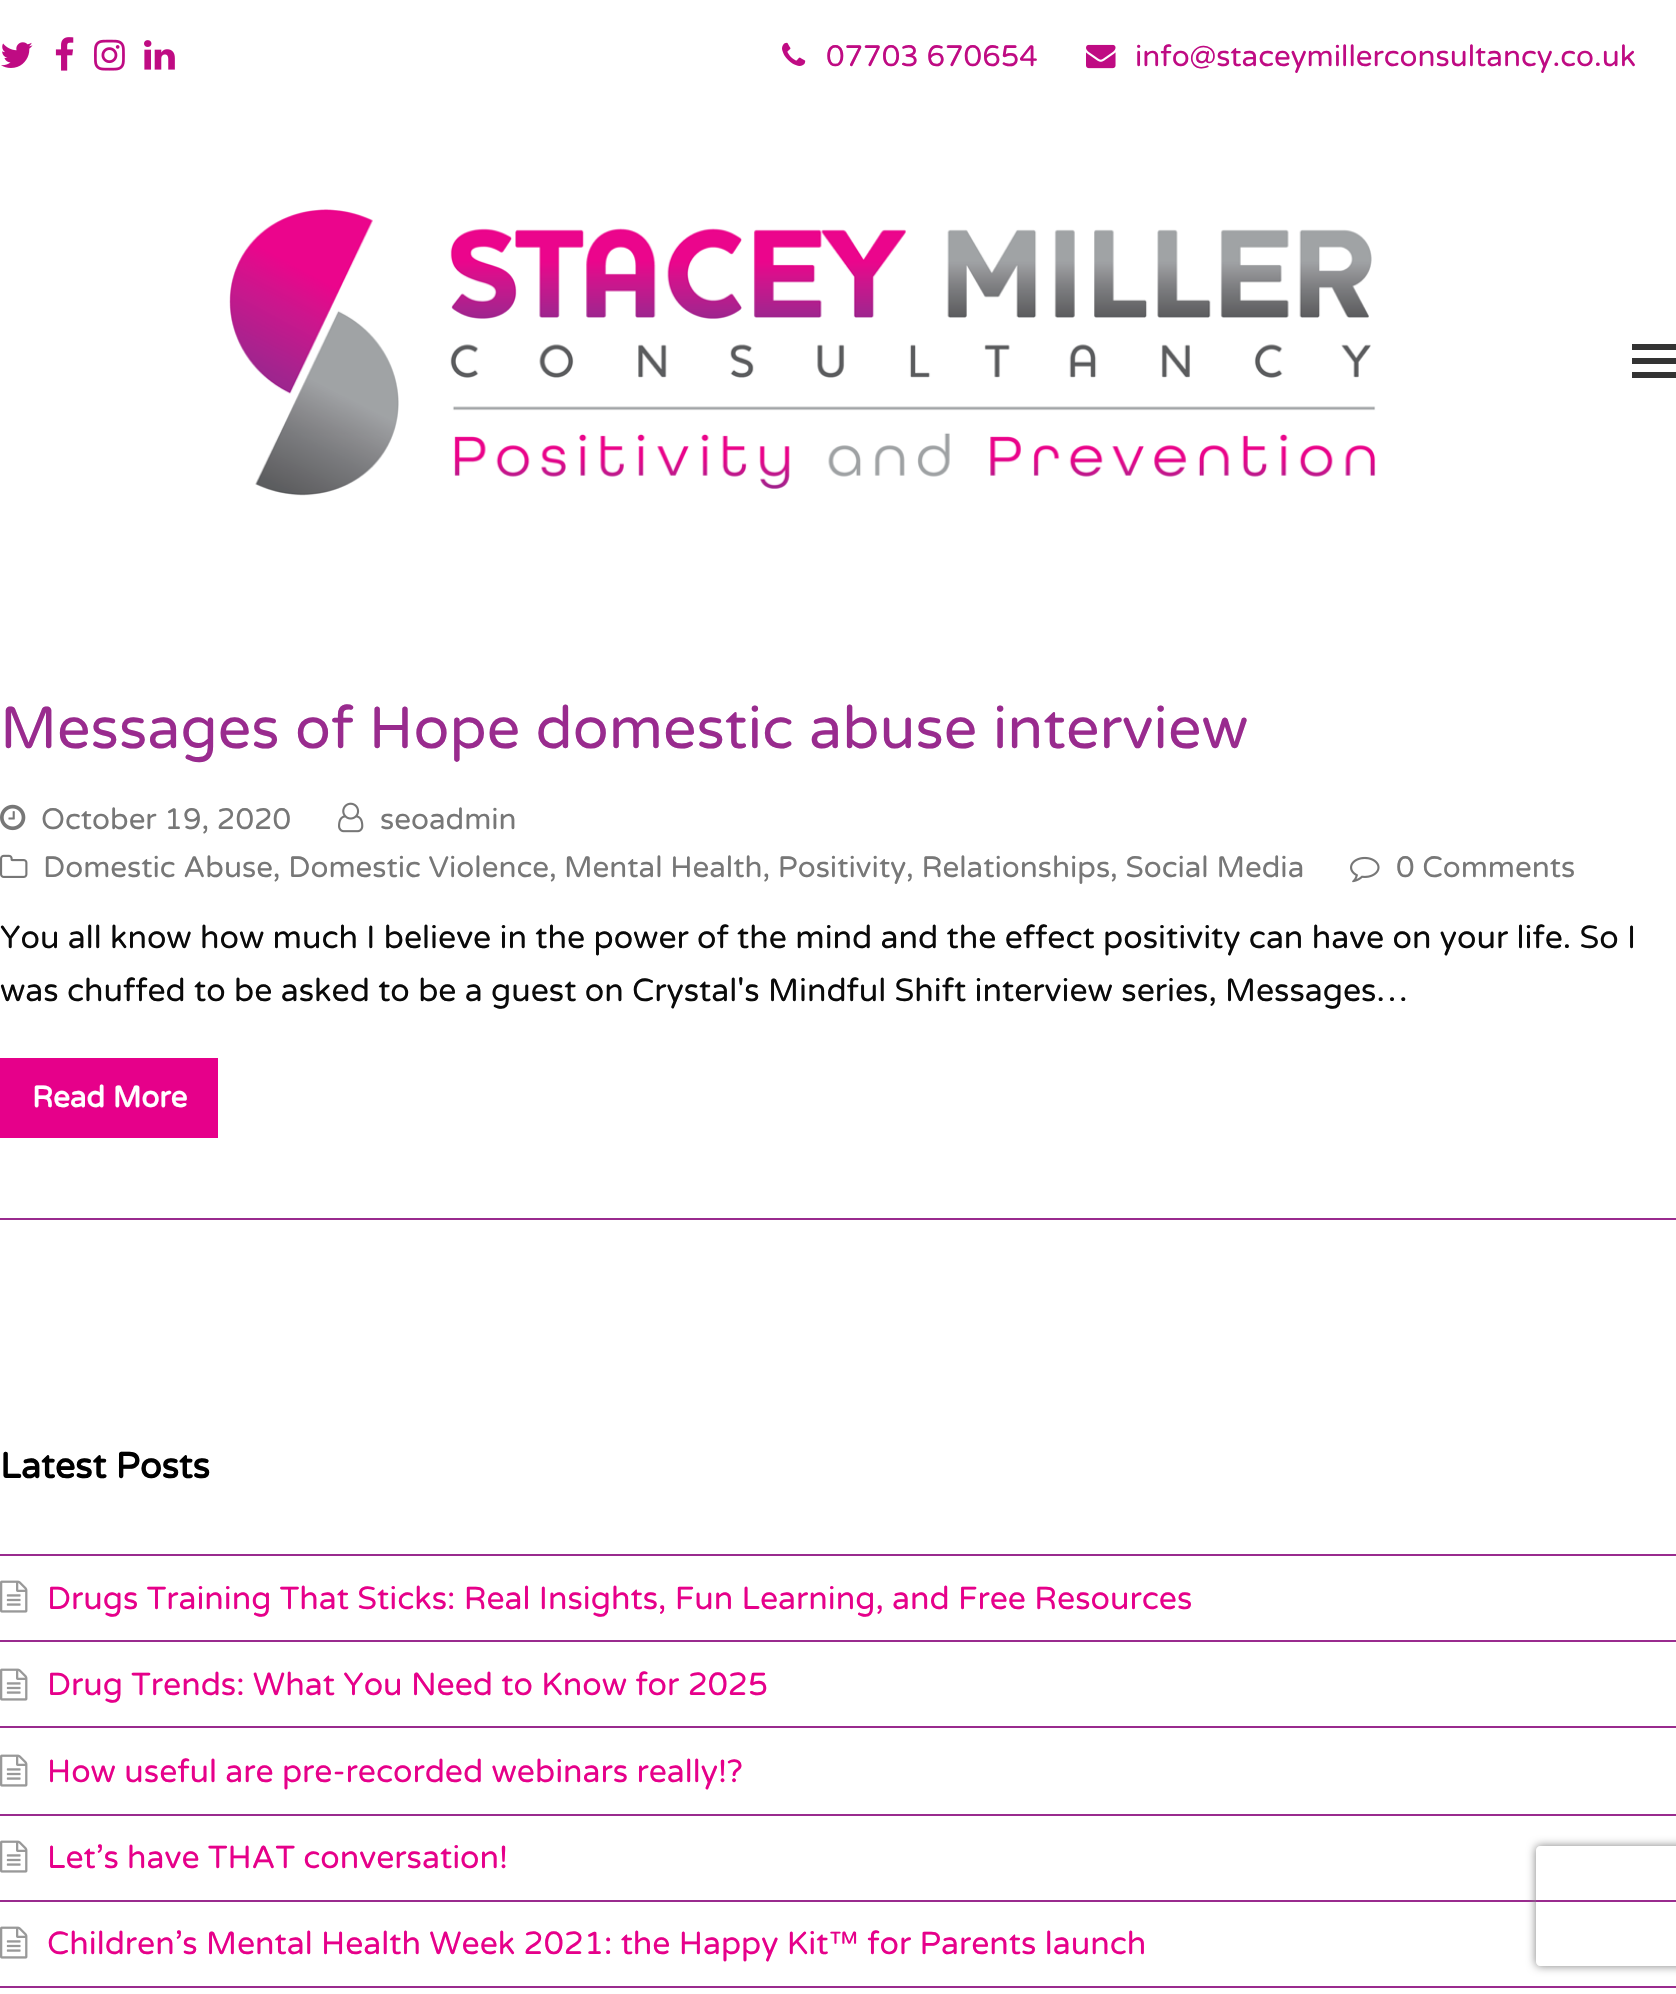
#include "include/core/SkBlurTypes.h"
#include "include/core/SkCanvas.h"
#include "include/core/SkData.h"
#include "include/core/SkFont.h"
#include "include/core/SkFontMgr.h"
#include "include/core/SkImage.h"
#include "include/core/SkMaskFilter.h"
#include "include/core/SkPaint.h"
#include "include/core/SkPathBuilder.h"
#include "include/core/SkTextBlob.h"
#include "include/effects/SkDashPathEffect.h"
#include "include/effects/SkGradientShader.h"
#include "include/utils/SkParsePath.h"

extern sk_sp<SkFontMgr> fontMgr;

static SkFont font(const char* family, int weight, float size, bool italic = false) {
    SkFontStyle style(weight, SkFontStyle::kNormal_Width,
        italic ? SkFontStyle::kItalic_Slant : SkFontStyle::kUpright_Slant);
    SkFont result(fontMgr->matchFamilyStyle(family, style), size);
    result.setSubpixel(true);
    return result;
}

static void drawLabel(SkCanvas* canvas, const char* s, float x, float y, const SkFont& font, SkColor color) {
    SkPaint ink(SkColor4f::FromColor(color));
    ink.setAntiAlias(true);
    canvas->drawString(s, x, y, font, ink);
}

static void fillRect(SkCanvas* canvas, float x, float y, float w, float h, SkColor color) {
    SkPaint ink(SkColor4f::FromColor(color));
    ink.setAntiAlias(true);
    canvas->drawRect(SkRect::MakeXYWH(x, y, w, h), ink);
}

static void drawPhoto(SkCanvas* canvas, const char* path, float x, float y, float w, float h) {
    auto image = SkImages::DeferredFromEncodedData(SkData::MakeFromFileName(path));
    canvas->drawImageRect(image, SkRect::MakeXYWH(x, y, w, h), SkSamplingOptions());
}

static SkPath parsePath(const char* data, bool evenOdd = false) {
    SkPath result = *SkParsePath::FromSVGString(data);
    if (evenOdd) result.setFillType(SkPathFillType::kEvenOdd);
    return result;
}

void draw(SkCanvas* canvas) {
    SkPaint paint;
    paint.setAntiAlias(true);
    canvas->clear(0xFFFFFFFF);
    drawPhoto(canvas, "assets/img1.png", 1, 42, 32, 26);
    drawPhoto(canvas, "assets/img2.png", 55, 37, 19, 34);
    drawPhoto(canvas, "assets/img3.png", 94, 39, 31, 32);
    drawPhoto(canvas, "assets/img4.png", 144, 40, 31, 30);
    drawPhoto(canvas, "assets/img5.png", 782, 42, 24, 24);
    SkFont font1 = font("Varela Round", 400, 29.55f);
    drawLabel(canvas, "07703 670654", 826, 66, font1, 0xFFBF0B83);
    drawPhoto(canvas, "assets/img6.png", 1086, 44, 30, 25);
    drawLabel(canvas, "info@staceymillerconsultancy.co.uk", 1135, 66, font1, 0xFFBF0B83);
    drawPhoto(canvas, "assets/img7.png", 229, 209, 1147, 287);
    fillRect(canvas, 1632, 358, 44, 6, 0xFF333333);
    fillRect(canvas, 1632, 344, 44, 6, 0xFF333333);
    fillRect(canvas, 1632, 372, 44, 6, 0xFF333333);
    fillRect(canvas, 0, 1218, 1676, 2, 0xFF992B8E);
    SkFont font2 = font("Varela Round", 400, 59.1f);
    drawLabel(canvas, "Messages of Hope domestic abuse interview", 0, 748, font2, 0xFF992B8E);
    drawPhoto(canvas, "assets/img8.png", 0, 804, 26, 27);
    drawLabel(canvas, "October 19, 2020", 41, 829, font1, 0xFF777777);
    drawPhoto(canvas, "assets/img9.png", 338, 802, 26, 31);
    drawLabel(canvas, "seoadmin", 380, 829, font1, 0xFF777777);
    drawPhoto(canvas, "assets/img10.png", 0, 854, 28, 24);
    drawLabel(canvas, "Domestic Abuse, Domestic Violence,", 43, 877, font1, 0xFF777777);
    drawLabel(canvas, "Mental Health, Positivity, Relationships, Social Media", 564, 877, font1, 0xFF777777);
    drawPhoto(canvas, "assets/img11.png", 1350, 856, 30, 27);
    drawLabel(canvas, "0 Comments", 1396, 877, font1, 0xFF777777);
    SkFont font3 = font("Varela Round", 400, 32);
    drawLabel(canvas, "You all know how much I believe in the power of the mind and the effect positivity can have on your life. So I", 0, 948, font3, 0xFF0A0A0A);
    drawLabel(canvas, "was chuffed to be asked to be a guest on Crystal's Mindful Shift interview series, Messages…", 0, 1001, font3, 0xFF0A0A0A);
    fillRect(canvas, 0, 1058, 218, 80, 0xFFE6008A);
    SkFont font4 = font("Varela Round", 700, 29.55f);
    drawLabel(canvas, "Read More", 32, 1107, font4, 0xFFFFFFFF);
    SkFont font5 = font("Varela Round", 700, 36);
    drawLabel(canvas, "Latest Posts", 0, 1478, font5, 0xFF000000);
    fillRect(canvas, 0, 1554, 1676, 2, 0xFF992B8E);
    fillRect(canvas, 0, 1640, 1676, 2, 0xFF992B8E);
    drawPhoto(canvas, "assets/img12.png", 0, 1580, 28, 33);
    drawLabel(canvas, "Drugs Training That Sticks: Real Insights, Fun Learning, and Free Resources", 47, 1609, font3, 0xFFE6008A);
    fillRect(canvas, 0, 1726, 1676, 2, 0xFF992B8E);
    drawPhoto(canvas, "assets/img12.png", 0, 1668, 28, 33);
    drawLabel(canvas, "Drug Trends: What You Need to Know for 2025", 47, 1695, font3, 0xFFE6008A);
    fillRect(canvas, 0, 1814, 1676, 2, 0xFF992B8E);
    drawPhoto(canvas, "assets/img12.png", 0, 1754, 28, 33);
    drawLabel(canvas, "How useful are pre-recorded webinars really!?", 47, 1782, font3, 0xFFE6008A);
    fillRect(canvas, 0, 1900, 1676, 2, 0xFF992B8E);
    drawPhoto(canvas, "assets/img12.png", 0, 1840, 28, 33);
    drawLabel(canvas, "Let’s have THAT conversation!", 47, 1868, font3, 0xFFE6008A);
    fillRect(canvas, 0, 1986, 1676, 2, 0xFF992B8E);
    drawPhoto(canvas, "assets/img12.png", 0, 1926, 28, 33);
    drawLabel(canvas, "Children’s Mental Health Week 2021: the Happy Kit™ for Parents launch", 47, 1954, font3, 0xFFE6008A);
    canvas->save();
    canvas->clipPath(parsePath("M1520 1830H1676V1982H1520ZM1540 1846H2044C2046 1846 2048 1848 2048 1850V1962C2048 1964 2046 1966 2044 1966H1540C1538 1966 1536 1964 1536 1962V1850C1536 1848 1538 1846 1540 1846Z", true), true);
    paint.setColor(0xFF808080);
    paint.setMaskFilter(SkMaskFilter::MakeBlur(kNormal_SkBlurStyle, 5));
    canvas->drawRoundRect(SkRect::MakeXYWH(1536, 1846, 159, 120), 4, 4, paint);
    paint.setMaskFilter(nullptr);
    canvas->restore();
}
